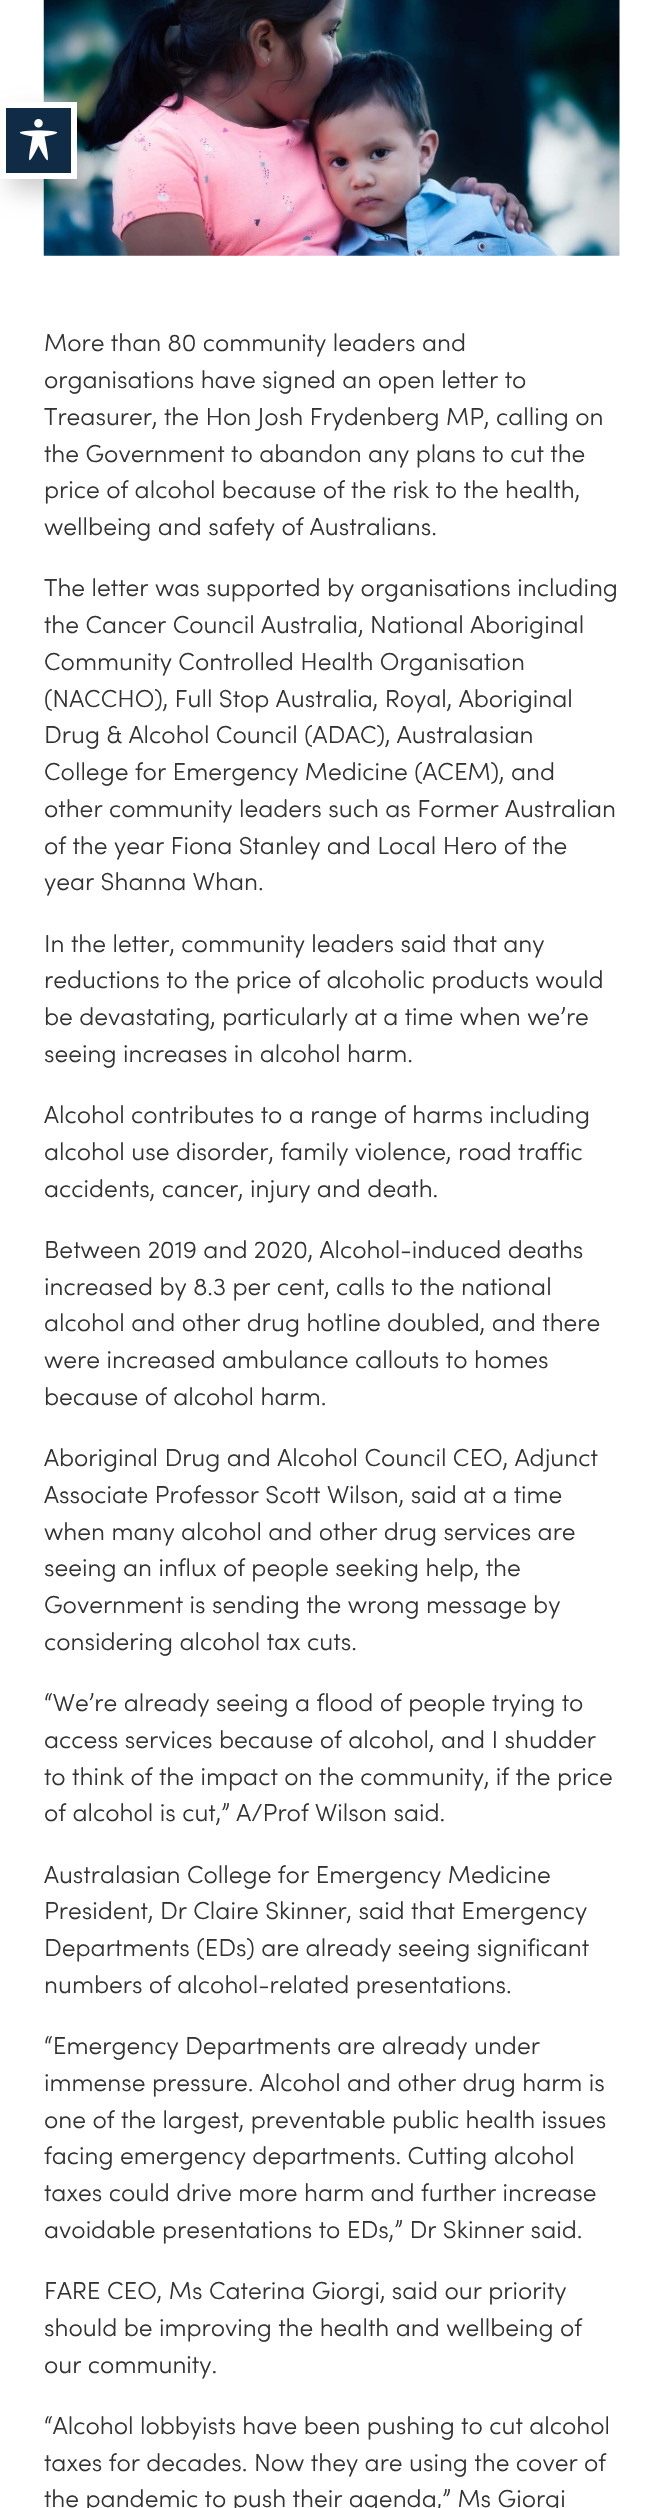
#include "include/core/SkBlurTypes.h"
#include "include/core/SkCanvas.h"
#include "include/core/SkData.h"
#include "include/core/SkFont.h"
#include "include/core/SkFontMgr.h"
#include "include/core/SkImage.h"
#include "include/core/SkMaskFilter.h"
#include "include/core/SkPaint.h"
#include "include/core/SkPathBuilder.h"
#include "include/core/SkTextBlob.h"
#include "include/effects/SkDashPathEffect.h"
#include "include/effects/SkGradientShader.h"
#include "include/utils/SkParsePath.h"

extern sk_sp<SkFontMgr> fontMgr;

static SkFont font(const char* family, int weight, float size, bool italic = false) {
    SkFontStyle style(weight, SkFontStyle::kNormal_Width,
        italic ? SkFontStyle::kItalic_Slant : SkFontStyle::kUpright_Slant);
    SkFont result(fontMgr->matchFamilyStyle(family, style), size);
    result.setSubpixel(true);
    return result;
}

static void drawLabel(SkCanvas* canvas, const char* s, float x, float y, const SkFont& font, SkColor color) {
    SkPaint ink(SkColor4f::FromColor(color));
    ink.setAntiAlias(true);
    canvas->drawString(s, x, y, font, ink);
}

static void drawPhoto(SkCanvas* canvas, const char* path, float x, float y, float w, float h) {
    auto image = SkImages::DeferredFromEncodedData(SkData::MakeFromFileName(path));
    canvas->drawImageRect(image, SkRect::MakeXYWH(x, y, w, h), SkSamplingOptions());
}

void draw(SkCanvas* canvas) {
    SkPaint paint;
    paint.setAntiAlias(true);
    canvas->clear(0xFFFFFFFF);
    drawPhoto(canvas, "assets/img2.png", 43, 0, 577, 256);
    paint.setColor(0x33000000);
    paint.setMaskFilter(SkMaskFilter::MakeBlur(kNormal_SkBlurStyle, 12.5f));
    canvas->drawRect(SkRect::MakeXYWH(11, 116, 75, 75), paint);
    paint.setMaskFilter(nullptr);
    paint.setColor(0xFF0F2B46);
    canvas->drawRect(SkRect::MakeXYWH(3, 105, 71, 71), paint);
    paint.setStroke(true);
    paint.setStrokeWidth(6);
    paint.setColor(0xFFFFFFFF);
    canvas->drawRect(SkRect::MakeXYWH(3, 105, 71, 71), paint);
    drawPhoto(canvas, "assets/img1.png", 19, 119, 39, 42);
    SkFont font1 = font("Sofia", 300, 24.5f);
    drawLabel(canvas, "More than 80 community leaders and", 44, 351, font1, 0xFF333333);
    drawLabel(canvas, "organisations have signed an open letter to", 44, 388, font1, 0xFF333333);
    drawLabel(canvas, "Treasurer, the Hon Josh Frydenberg MP, calling on", 44, 425, font1, 0xFF333333);
    drawLabel(canvas, "the Government to abandon any plans to cut the", 44, 462, font1, 0xFF333333);
    drawLabel(canvas, "price of alcohol because of the risk to the health,", 44, 498, font1, 0xFF333333);
    drawLabel(canvas, "wellbeing and safety of Australians.", 44, 535, font1, 0xFF333333);
    drawLabel(canvas, "The letter was supported by organisations including", 44, 596, font1, 0xFF333333);
    drawLabel(canvas, "the Cancer Council Australia, National Aboriginal", 44, 633, font1, 0xFF333333);
    drawLabel(canvas, "Community Controlled Health Organisation", 44, 670, font1, 0xFF333333);
    drawLabel(canvas, "(NACCHO), Full Stop Australia, Royal, Aboriginal", 44, 707, font1, 0xFF333333);
    drawLabel(canvas, "Drug & Alcohol Council (ADAC), Australasian", 44, 743, font1, 0xFF333333);
    drawLabel(canvas, "College for Emergency Medicine (ACEM), and", 44, 780, font1, 0xFF333333);
    drawLabel(canvas, "other community leaders such as Former Australian", 44, 817, font1, 0xFF333333);
    drawLabel(canvas, "of the year Fiona Stanley and Local Hero of the", 44, 854, font1, 0xFF333333);
    drawLabel(canvas, "year Shanna Whan.", 44, 890, font1, 0xFF333333);
    drawLabel(canvas, "In the letter, community leaders said that any", 44, 952, font1, 0xFF333333);
    drawLabel(canvas, "reductions to the price of alcoholic products would", 44, 988, font1, 0xFF333333);
    drawLabel(canvas, "be devastating, particularly at a time when we’re", 44, 1025, font1, 0xFF333333);
    drawLabel(canvas, "seeing increases in alcohol harm.", 44, 1062, font1, 0xFF333333);
    drawLabel(canvas, "Alcohol contributes to a range of harms including", 44, 1123, font1, 0xFF333333);
    drawLabel(canvas, "alcohol use disorder, family violence, road traffic", 44, 1160, font1, 0xFF333333);
    drawLabel(canvas, "accidents, cancer, injury and death.", 44, 1197, font1, 0xFF333333);
    drawLabel(canvas, "Between 2019 and 2020, Alcohol-induced deaths", 44, 1258, font1, 0xFF333333);
    drawLabel(canvas, "increased by 8.3 per cent, calls to the national", 44, 1295, font1, 0xFF333333);
    drawLabel(canvas, "alcohol and other drug hotline doubled, and there", 44, 1331, font1, 0xFF333333);
    drawLabel(canvas, "were increased ambulance callouts to homes", 44, 1368, font1, 0xFF333333);
    drawLabel(canvas, "because of alcohol harm.", 44, 1405, font1, 0xFF333333);
    drawLabel(canvas, "Aboriginal Drug and Alcohol Council CEO, Adjunct", 44, 1466, font1, 0xFF333333);
    drawLabel(canvas, "Associate Professor Scott Wilson, said at a time", 44, 1503, font1, 0xFF333333);
    drawLabel(canvas, "when many alcohol and other drug services are", 44, 1540, font1, 0xFF333333);
    drawLabel(canvas, "seeing an influx of people seeking help, the", 44, 1576, font1, 0xFF333333);
    drawLabel(canvas, "Government is sending the wrong message by", 44, 1613, font1, 0xFF333333);
    drawLabel(canvas, "considering alcohol tax cuts.", 44, 1650, font1, 0xFF333333);
    drawLabel(canvas, "“We’re already seeing a flood of people trying to", 44, 1711, font1, 0xFF333333);
    drawLabel(canvas, "access services because of alcohol, and I shudder", 44, 1748, font1, 0xFF333333);
    drawLabel(canvas, "to think of the impact on the community, if the price", 44, 1785, font1, 0xFF333333);
    drawLabel(canvas, "of alcohol is cut,” A/Prof Wilson said.", 44, 1821, font1, 0xFF333333);
    drawLabel(canvas, "Australasian College for Emergency Medicine", 44, 1883, font1, 0xFF333333);
    drawLabel(canvas, "President, Dr Claire Skinner, said that Emergency", 44, 1919, font1, 0xFF333333);
    drawLabel(canvas, "Departments (EDs) are already seeing significant", 44, 1956, font1, 0xFF333333);
    drawLabel(canvas, "numbers of alcohol-related presentations.", 44, 1993, font1, 0xFF333333);
    drawLabel(canvas, "“Emergency Departments are already under", 44, 2054, font1, 0xFF333333);
    drawLabel(canvas, "immense pressure. Alcohol and other drug harm is", 44, 2091, font1, 0xFF333333);
    drawLabel(canvas, "one of the largest, preventable public health issues", 44, 2128, font1, 0xFF333333);
    drawLabel(canvas, "facing emergency departments. Cutting alcohol", 44, 2164, font1, 0xFF333333);
    drawLabel(canvas, "taxes could drive more harm and further increase", 44, 2201, font1, 0xFF333333);
    drawLabel(canvas, "avoidable presentations to EDs,” Dr Skinner said.", 44, 2238, font1, 0xFF333333);
    drawLabel(canvas, "FARE CEO, Ms Caterina Giorgi, said our priority", 44, 2299, font1, 0xFF333333);
    drawLabel(canvas, "should be improving the health and wellbeing of", 44, 2336, font1, 0xFF333333);
    drawLabel(canvas, "our community.", 44, 2373, font1, 0xFF333333);
    drawLabel(canvas, "“Alcohol lobbyists have been pushing to cut alcohol", 44, 2434, font1, 0xFF333333);
    drawLabel(canvas, "taxes for decades. Now they are using the cover of", 44, 2471, font1, 0xFF333333);
    drawLabel(canvas, "the pandemic to push their agenda,” Ms Giorgi", 44, 2507, font1, 0xFF333333);
}
